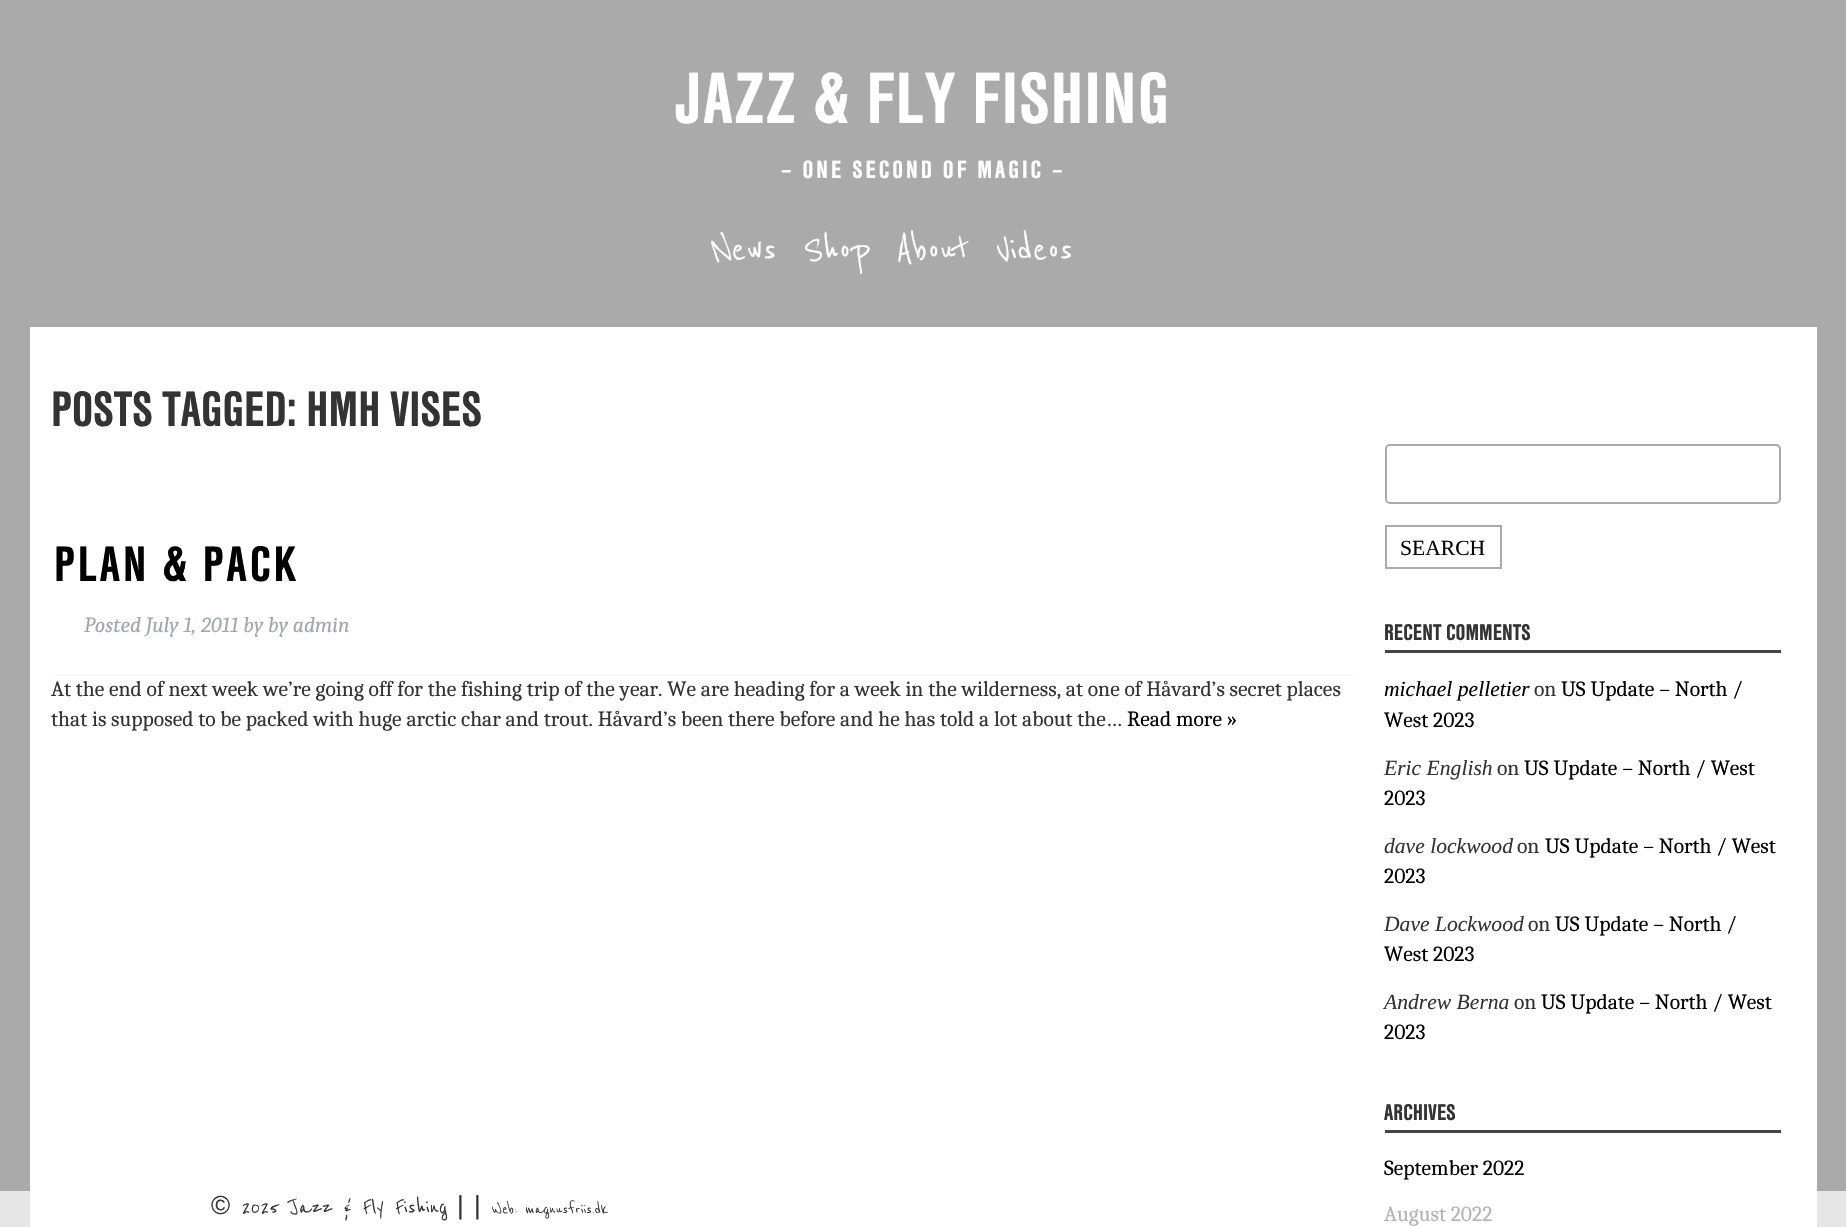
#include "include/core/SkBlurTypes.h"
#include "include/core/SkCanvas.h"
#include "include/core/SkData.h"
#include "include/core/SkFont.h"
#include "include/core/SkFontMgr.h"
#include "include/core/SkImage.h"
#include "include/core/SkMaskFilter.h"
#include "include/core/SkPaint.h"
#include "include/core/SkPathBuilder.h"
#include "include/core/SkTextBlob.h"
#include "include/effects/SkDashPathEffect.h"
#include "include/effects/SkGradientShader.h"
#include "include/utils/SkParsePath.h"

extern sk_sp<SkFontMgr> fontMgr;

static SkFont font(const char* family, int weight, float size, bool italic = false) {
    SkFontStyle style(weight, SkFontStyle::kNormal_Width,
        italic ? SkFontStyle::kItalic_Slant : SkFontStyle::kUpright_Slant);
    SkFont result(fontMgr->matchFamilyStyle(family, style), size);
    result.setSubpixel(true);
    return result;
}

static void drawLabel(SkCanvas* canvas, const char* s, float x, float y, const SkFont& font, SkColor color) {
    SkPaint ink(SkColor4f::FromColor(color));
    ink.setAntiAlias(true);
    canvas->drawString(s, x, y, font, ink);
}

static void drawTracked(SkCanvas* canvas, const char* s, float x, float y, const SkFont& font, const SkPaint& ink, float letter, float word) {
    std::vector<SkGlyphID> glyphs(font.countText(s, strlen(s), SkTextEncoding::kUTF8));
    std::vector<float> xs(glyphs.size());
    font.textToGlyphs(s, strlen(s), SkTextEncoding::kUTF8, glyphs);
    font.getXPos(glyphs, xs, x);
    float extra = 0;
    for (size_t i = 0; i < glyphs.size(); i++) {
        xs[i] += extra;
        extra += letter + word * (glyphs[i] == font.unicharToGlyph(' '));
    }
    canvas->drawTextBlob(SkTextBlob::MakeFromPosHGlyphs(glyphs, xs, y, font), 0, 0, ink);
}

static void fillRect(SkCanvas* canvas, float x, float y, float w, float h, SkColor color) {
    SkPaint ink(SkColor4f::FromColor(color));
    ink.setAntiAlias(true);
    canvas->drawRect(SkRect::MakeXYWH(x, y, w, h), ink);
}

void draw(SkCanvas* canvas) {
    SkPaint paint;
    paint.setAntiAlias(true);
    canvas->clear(0xFFAAAAAA);
    fillRect(canvas, 0, 1191, 1846, 36, 0xFFE6E6E6);
    SkFont font1 = font("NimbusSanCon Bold", 700, 75.5f);
    paint.setColor(0xFFFFFFFF);
    drawTracked(canvas, "JAZZ & FLY FISHING", 675, 123, font1, paint, 1.5f, 0);
    SkFont font2 = font("NimbusSanCon Bold", 700, 26);
    drawTracked(canvas, "– ONE SECOND OF MAGIC –", 781, 178, font2, paint, 3, 0);
    SkFont font3 = font("Reenie Beanie", 500, 43);
    drawLabel(canvas, "News", 711, 261, font3, 0xFFFFFFFF);
    drawLabel(canvas, "Shop", 803, 261, font3, 0xFFFFFFFF);
    drawLabel(canvas, "About", 896, 261, font3, 0xFFFFFFFF);
    drawLabel(canvas, "Videos", 996, 261, font3, 0xFFFFFFFF);
    fillRect(canvas, 30, 327, 1787, 900, 0xFFFFFFFF);
    SkFont font4 = font("NimbusSanCon Bold", 700, 51.75f);
    drawLabel(canvas, "POSTS TAGGED: HMH VISES", 51, 426, font4, 0xFF333333);
    fillRect(canvas, 51, 674, 1305, 2, 0xFFF8F9FA);
    paint.setColor(0xFF000000);
    drawTracked(canvas, "PLAN & PACK", 54, 581, font4, paint, 3, 0);
    SkFont font5 = font("Caladea", 400, 21.6f, true);
    drawLabel(canvas, "Posted July 1, 2011 by by admin", 84, 632, font5, 0xFF9FA6B4);
    SkFont font6 = font("Caladea", 400, 21.6f);
    drawLabel(canvas, "At the end of next week we’re going off for the fishing trip of the year. We are heading for a week in the wilderness, at one of Håvard’s secret places", 51, 696, font6, 0xFF333333);
    drawLabel(canvas, "that is supposed to be packed with huge arctic char and trout. Håvard’s been there before and he has told a lot about the…", 51, 726, font6, 0xFF333333);
    drawLabel(canvas, "Read more »", 1127, 726, font6, 0xFF000000);
    paint.setStroke(true);
    paint.setStrokeWidth(2);
    paint.setColor(0xFFAAAAAA);
    canvas->drawRoundRect(SkRect::MakeXYWH(1386, 445, 394, 58), 4, 4, paint);
    canvas->drawRect(SkRect::MakeXYWH(1386, 526, 115, 42), paint);
    SkFont font7 = font("Liberation Serif", 400, 21.6f);
    drawLabel(canvas, "SEARCH", 1400, 555, font7, 0xFF000000);
    fillRect(canvas, 1385, 650, 396, 3, 0xFF444444);
    SkFont font8 = font("NimbusSanCon Bold", 700, 23.75f);
    drawLabel(canvas, "RECENT COMMENTS", 1384, 640, font8, 0xFF333333);
    SkFont font9 = font("Liberation Serif", 400, 21.6f, true);
    drawLabel(canvas, "michael pelletier", 1384, 696, font9, 0xFF000000);
    drawLabel(canvas, "on", 1534, 696, font6, 0xFF333333);
    drawLabel(canvas, "US Update – North /", 1561, 696, font6, 0xFF000000);
    drawLabel(canvas, "West 2023", 1384, 727, font6, 0xFF000000);
    drawLabel(canvas, "Eric English", 1384, 775, font9, 0xFF333333);
    drawLabel(canvas, "on", 1497, 775, font6, 0xFF333333);
    drawLabel(canvas, "US Update – North / West", 1524, 775, font6, 0xFF000000);
    drawLabel(canvas, "2023", 1384, 805, font6, 0xFF000000);
    drawLabel(canvas, "dave lockwood", 1384, 853, font9, 0xFF333333);
    drawLabel(canvas, "on", 1517, 853, font6, 0xFF333333);
    drawLabel(canvas, "US Update – North / West", 1545, 853, font6, 0xFF000000);
    drawLabel(canvas, "2023", 1384, 883, font6, 0xFF000000);
    drawLabel(canvas, "Dave Lockwood", 1384, 931, font9, 0xFF333333);
    drawLabel(canvas, "on", 1528, 931, font6, 0xFF333333);
    drawLabel(canvas, "US Update – North /", 1555, 931, font6, 0xFF000000);
    drawLabel(canvas, "West 2023", 1384, 961, font6, 0xFF000000);
    drawLabel(canvas, "Andrew Berna", 1384, 1009, font9, 0xFF333333);
    drawLabel(canvas, "on", 1514, 1009, font6, 0xFF333333);
    drawLabel(canvas, "US Update – North / West", 1541, 1009, font6, 0xFF000000);
    drawLabel(canvas, "2023", 1384, 1039, font6, 0xFF000000);
    fillRect(canvas, 1385, 1130, 396, 3, 0xFF444444);
    drawLabel(canvas, "ARCHIVES", 1384, 1120, font8, 0xFF333333);
    drawLabel(canvas, "September 2022", 1384, 1175, font6, 0xFF000000);
    drawLabel(canvas, "August 2022", 1384, 1221, font6, 0xFFB3B3B3);
    SkFont font10 = font("Liberation Sans", 400, 26);
    drawLabel(canvas, "©", 211, 1214, font10, 0xFF333333);
    SkFont font11 = font("Reenie Beanie", 500, 26);
    drawLabel(canvas, "2025 Jazz & Fly Fishing", 241, 1214, font11, 0xFF333333);
    drawLabel(canvas, "|", 457, 1214, font10, 0xFF333333);
    drawLabel(canvas, "|", 474, 1214, font10, 0xFF333333);
    SkFont font12 = font("Reenie Beanie", 500, 18);
    drawLabel(canvas, "Web: magnusfriis.dk", 492, 1214, font12, 0xFF333333);
}
